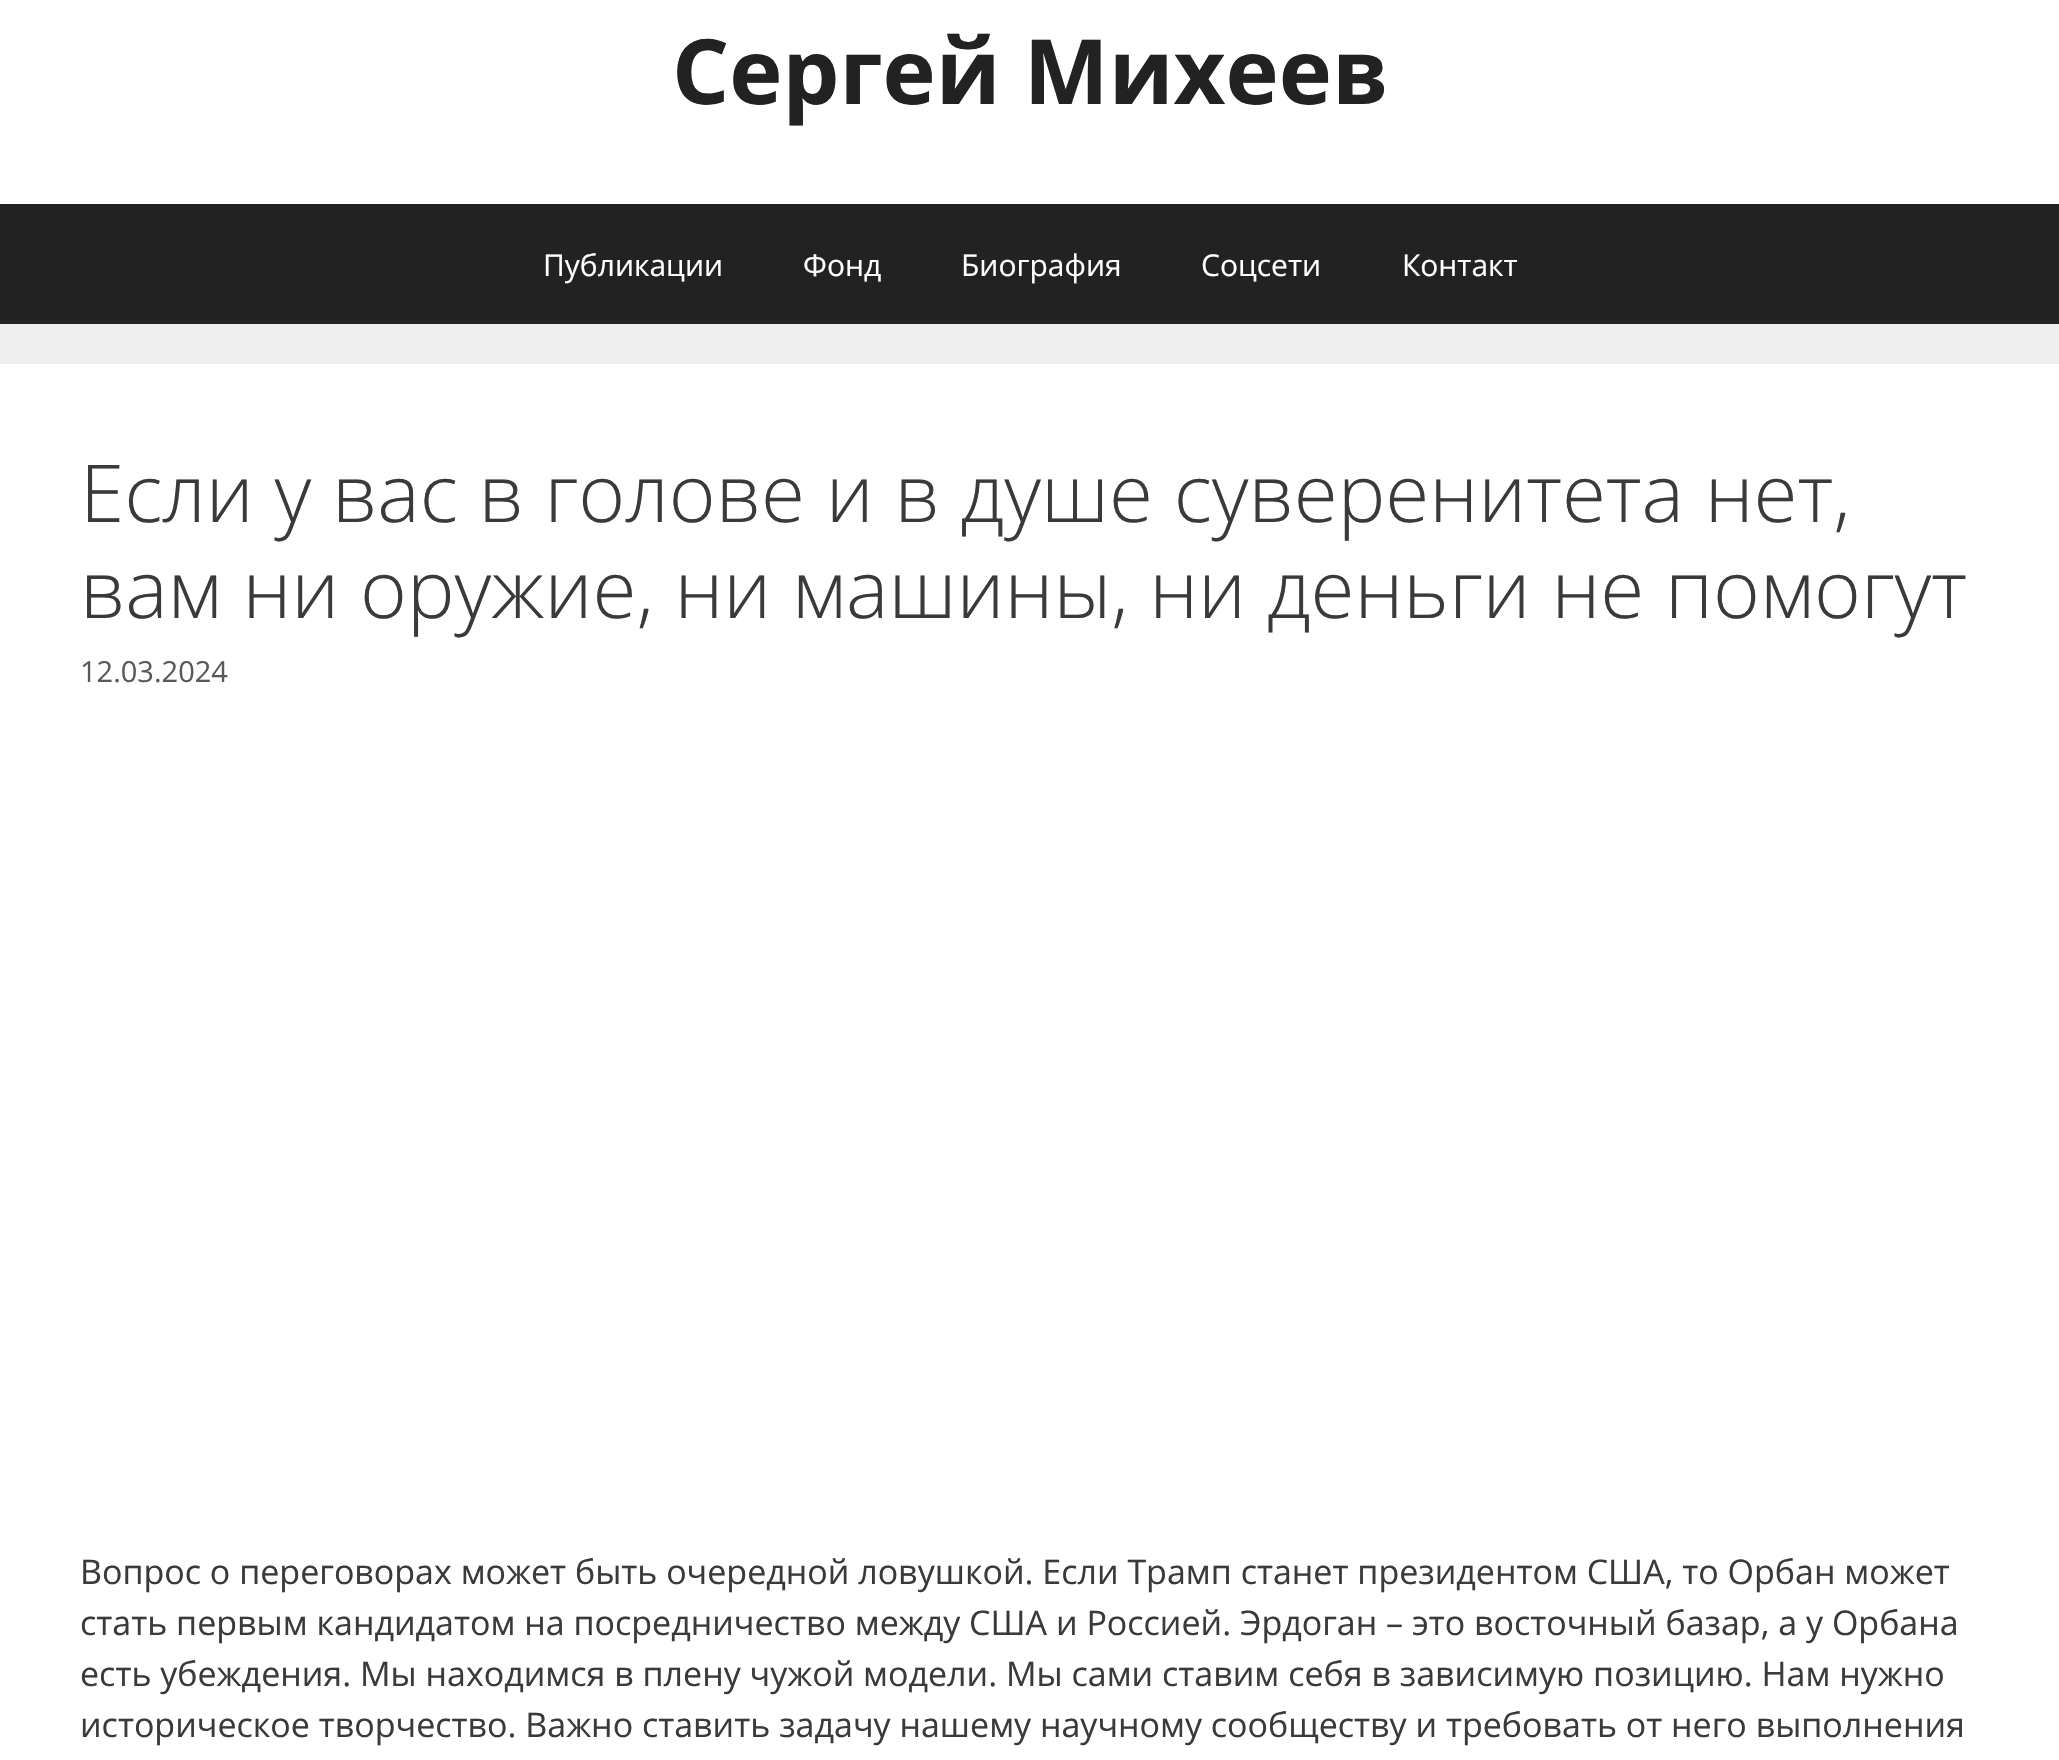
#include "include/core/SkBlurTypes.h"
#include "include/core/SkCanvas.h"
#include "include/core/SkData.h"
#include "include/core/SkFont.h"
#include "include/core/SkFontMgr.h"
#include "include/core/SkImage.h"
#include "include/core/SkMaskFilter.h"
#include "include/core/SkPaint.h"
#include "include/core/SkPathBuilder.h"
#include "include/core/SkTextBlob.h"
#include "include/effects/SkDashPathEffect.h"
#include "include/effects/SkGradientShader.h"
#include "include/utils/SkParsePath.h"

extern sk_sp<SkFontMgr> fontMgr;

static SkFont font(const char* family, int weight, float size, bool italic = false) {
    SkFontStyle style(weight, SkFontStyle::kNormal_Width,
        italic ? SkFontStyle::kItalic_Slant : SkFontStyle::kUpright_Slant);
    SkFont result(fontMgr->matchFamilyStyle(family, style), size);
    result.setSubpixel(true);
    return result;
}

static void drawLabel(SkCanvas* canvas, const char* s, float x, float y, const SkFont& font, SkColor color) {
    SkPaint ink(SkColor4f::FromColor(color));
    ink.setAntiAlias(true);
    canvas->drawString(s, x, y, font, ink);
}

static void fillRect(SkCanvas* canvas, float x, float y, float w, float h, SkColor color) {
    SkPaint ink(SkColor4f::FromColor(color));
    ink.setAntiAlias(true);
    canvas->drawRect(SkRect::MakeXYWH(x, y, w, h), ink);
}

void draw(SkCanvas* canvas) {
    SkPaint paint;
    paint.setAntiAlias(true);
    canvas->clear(0xFFEFEFEF);
    fillRect(canvas, 0, 0, 2059, 204, 0xFFFFFFFF);
    SkFont font1 = font("Open Sans", 700, 90);
    drawLabel(canvas, "Сергей Михеев", 672, 104, font1, 0xFF222222);
    fillRect(canvas, 0, 204, 2059, 120, 0xFF222222);
    SkFont font2 = font("Open Sans", 400, 30);
    drawLabel(canvas, "Публикации", 543, 276, font2, 0xFFFFFFFF);
    drawLabel(canvas, "Фонд", 803, 276, font2, 0xFFFFFFFF);
    drawLabel(canvas, "Биография", 961, 276, font2, 0xFFFFFFFF);
    drawLabel(canvas, "Соцсети", 1201, 276, font2, 0xFFFFFFFF);
    drawLabel(canvas, "Контакт", 1402, 276, font2, 0xFFFFFFFF);
    fillRect(canvas, 0, 364, 2059, 1396, 0xFFFFFFFF);
    SkFont font3 = font("Open Sans", 300, 80);
    drawLabel(canvas, "Если у вас в голове и в душе суверенитета нет,", 80, 522, font3, 0xFF3A3A3A);
    drawLabel(canvas, "вам ни оружие, ни машины, ни деньги не помогут", 80, 618, font3, 0xFF3A3A3A);
    SkFont font4 = font("Open Sans", 400, 29);
    drawLabel(canvas, "12.03.2024", 80, 682, font4, 0xFF595959);
    SkFont font5 = font("Open Sans", 400, 34);
    drawLabel(canvas, "Вопрос о переговорах может быть очередной ловушкой. Если Трамп станет президентом США, то Орбан может", 80, 1584, font5, 0xFF3A3A3A);
    drawLabel(canvas, "стать первым кандидатом на посредничество между США и Россией. Эрдоган – это восточный базар, а у Орбана", 80, 1635, font5, 0xFF3A3A3A);
    drawLabel(canvas, "есть убеждения. Мы находимся в плену чужой модели. Мы сами ставим себя в зависимую позицию. Нам нужно", 80, 1686, font5, 0xFF3A3A3A);
    drawLabel(canvas, "историческое творчество. Важно ставить задачу нашему научному сообществу и требовать от него выполнения", 80, 1737, font5, 0xFF3A3A3A);
}
